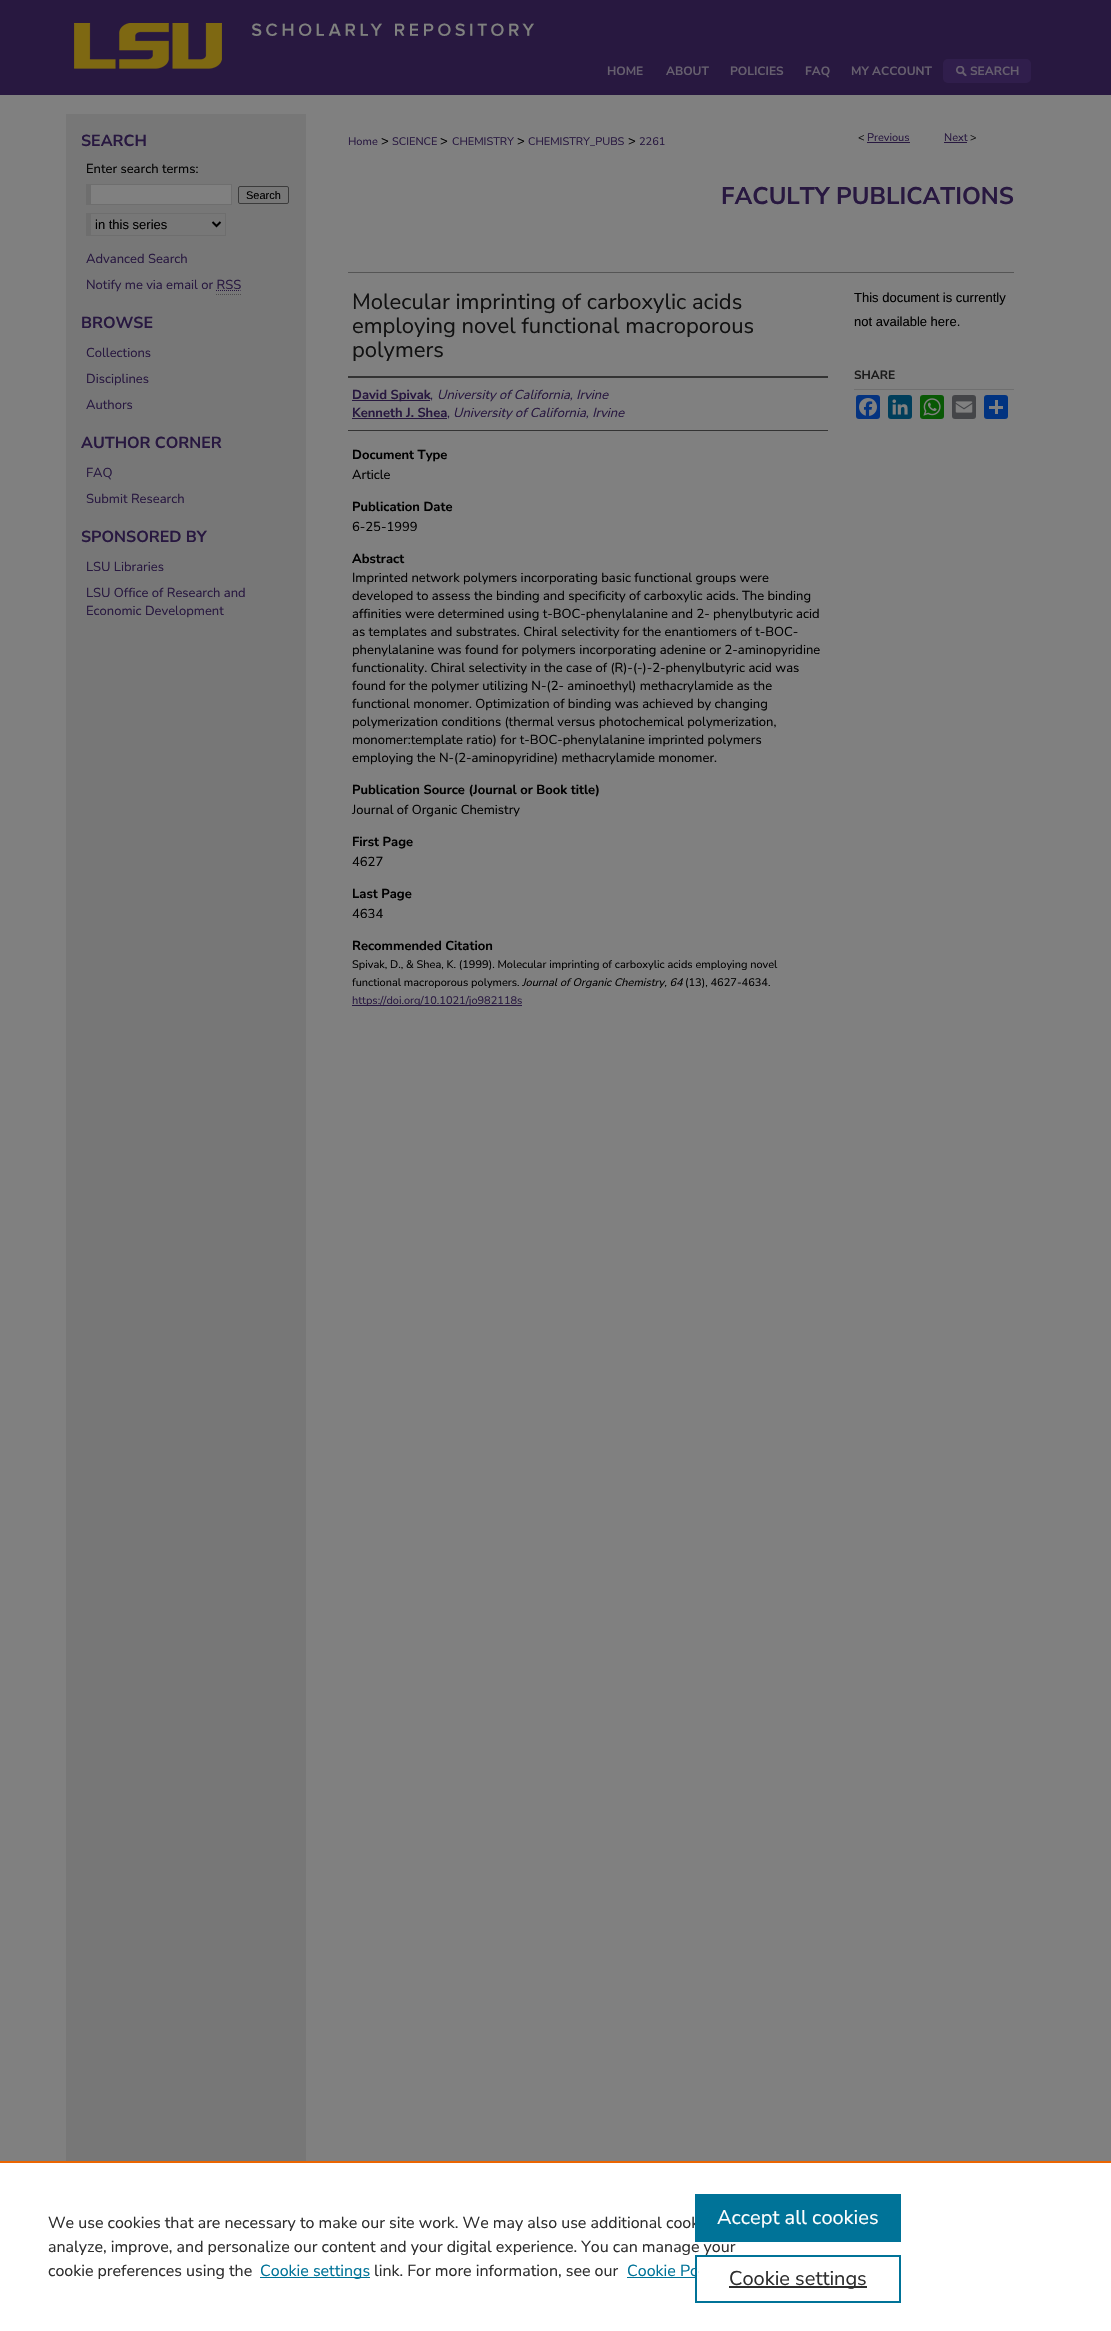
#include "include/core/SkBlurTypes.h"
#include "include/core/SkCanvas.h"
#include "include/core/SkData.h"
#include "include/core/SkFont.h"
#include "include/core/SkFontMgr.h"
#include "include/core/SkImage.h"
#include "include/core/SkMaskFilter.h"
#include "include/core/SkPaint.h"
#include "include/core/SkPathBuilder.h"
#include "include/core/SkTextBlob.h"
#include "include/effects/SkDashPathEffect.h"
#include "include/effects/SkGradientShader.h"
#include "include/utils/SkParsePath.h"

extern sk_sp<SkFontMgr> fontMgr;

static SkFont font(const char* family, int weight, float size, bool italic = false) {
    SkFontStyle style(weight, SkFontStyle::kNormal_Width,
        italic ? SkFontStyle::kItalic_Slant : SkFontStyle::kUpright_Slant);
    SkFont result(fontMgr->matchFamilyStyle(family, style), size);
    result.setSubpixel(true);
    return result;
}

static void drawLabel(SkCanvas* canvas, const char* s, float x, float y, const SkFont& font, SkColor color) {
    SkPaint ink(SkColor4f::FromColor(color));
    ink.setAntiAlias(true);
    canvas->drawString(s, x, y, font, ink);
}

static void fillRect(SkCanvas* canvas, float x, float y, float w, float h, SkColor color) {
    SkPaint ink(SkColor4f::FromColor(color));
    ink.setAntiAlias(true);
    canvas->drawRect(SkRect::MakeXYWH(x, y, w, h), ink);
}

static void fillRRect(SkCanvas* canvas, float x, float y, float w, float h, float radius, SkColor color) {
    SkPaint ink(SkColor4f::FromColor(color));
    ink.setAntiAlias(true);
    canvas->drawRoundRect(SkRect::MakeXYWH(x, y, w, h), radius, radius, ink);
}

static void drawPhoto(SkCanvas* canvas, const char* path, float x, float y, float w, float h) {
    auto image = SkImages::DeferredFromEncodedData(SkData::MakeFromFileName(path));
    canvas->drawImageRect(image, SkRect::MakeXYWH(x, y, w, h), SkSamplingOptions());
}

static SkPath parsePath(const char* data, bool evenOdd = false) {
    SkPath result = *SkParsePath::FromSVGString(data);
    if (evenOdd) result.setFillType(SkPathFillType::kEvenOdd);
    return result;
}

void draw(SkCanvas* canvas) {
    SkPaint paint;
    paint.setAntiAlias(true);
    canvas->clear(0xFF808080);
    fillRect(canvas, 0, 0, 1111, 95, 0xFF281840);
    drawPhoto(canvas, "assets/img1.png", 74, 23, 460, 46);
    SkFont font1 = font("Nunito Sans", 700, 12);
    drawLabel(canvas, "HOME", 607, 75, font1, 0xFF665F6E);
    drawLabel(canvas, "ABOUT", 666, 75, font1, 0xFF665F6E);
    drawLabel(canvas, "POLICIES", 730, 75, font1, 0xFF665F6E);
    drawLabel(canvas, "FAQ", 805, 75, font1, 0xFF665F6E);
    drawLabel(canvas, "MY ACCOUNT", 851, 75, font1, 0xFF665F6E);
    fillRRect(canvas, 943, 59, 88, 24, 5, 0xFF301E4C);
    drawPhoto(canvas, "assets/img2.png", 956, 66, 11, 11);
    drawLabel(canvas, "SEARCH", 970, 75, font1, 0xFF665F6E);
    fillRect(canvas, 66, 114, 240, 2047, 0xFF777777);
    SkFont font2 = font("Nunito Sans", 700, 16);
    drawLabel(canvas, "SEARCH", 81, 146, font2, 0xFF281840);
    SkFont font3 = font("Nunito Sans", 400, 13);
    drawLabel(canvas, "Enter search terms:", 86, 173, font3, 0xFF000000);
    fillRect(canvas, 91, 185, 140, 19, 0xFF808080);
    fillRect(canvas, 86, 184, 146, 1, 0xFF6E6E6E);
    fillRect(canvas, 231, 184, 1, 21, 0xFF6E6E6E);
    fillRect(canvas, 86, 204, 146, 1, 0xFF6E6E6E);
    fillRect(canvas, 86, 184, 5, 21, 0xFF6E6E6E);
    paint.setStroke(true);
    paint.setStrokeWidth(1);
    paint.setColor(0xFF3B3B3B);
    canvas->drawRoundRect(SkRect::MakeXYWH(238.5f, 186.5f, 50, 17), 1.5f, 1.5f, paint);
    SkFont font4 = font("Liberation Sans", 400, 11);
    drawLabel(canvas, "Search", 246, 199, font4, 0xFF000000);
    fillRect(canvas, 86, 213, 140, 1, 0xFF6E6E6E);
    fillRect(canvas, 225, 213, 1, 23, 0xFF6E6E6E);
    fillRect(canvas, 86, 235, 140, 1, 0xFF6E6E6E);
    fillRect(canvas, 86, 213, 5, 23, 0xFF6E6E6E);
    paint.setStrokeWidth(2);
    paint.setColor(0xFF000000);
    canvas->drawPath(parsePath("M212.5 222L216.5 226L220.5 222"), paint);
    SkFont font5 = font("Liberation Sans", 400, 13);
    drawLabel(canvas, "in this series", 95, 229, font5, 0xFF000000);
    drawLabel(canvas, "Advanced Search", 86, 263, font3, 0xFF281840);
    drawLabel(canvas, "Notify me via email or RSS", 86, 289, font3, 0xFF281840);
    paint.setStrokeWidth(1);
    paint.setColor(0xFF281840);
    paint.setPathEffect(SkDashPathEffect::Make({{1, 1}}, 0));
    canvas->drawPath(parsePath("M216 290.5H240.5"), paint);
    paint.setPathEffect(nullptr);
    paint.setColor(0xFF4D4D4D);
    paint.setPathEffect(SkDashPathEffect::Make({{1, 1}}, 0));
    canvas->drawPath(parsePath("M216 294.5H241"), paint);
    paint.setPathEffect(nullptr);
    drawLabel(canvas, "BROWSE", 81, 328, font2, 0xFF281840);
    drawLabel(canvas, "Collections", 86, 357, font3, 0xFF281840);
    drawLabel(canvas, "Disciplines", 86, 383, font3, 0xFF281840);
    drawLabel(canvas, "Authors", 86, 409, font3, 0xFF281840);
    drawLabel(canvas, "AUTHOR CORNER", 81, 448, font2, 0xFF281840);
    drawLabel(canvas, "FAQ", 86, 477, font3, 0xFF281840);
    drawLabel(canvas, "Submit Research", 86, 503, font3, 0xFF281840);
    drawLabel(canvas, "SPONSORED BY", 81, 542, font2, 0xFF281840);
    drawLabel(canvas, "LSU Libraries", 86, 571, font3, 0xFF281840);
    drawLabel(canvas, "LSU Office of Research and", 86, 597, font3, 0xFF281840);
    drawLabel(canvas, "Economic Development", 86, 615, font3, 0xFF281840);
    SkFont font6 = font("Nunito Sans", 400, 11);
    drawLabel(canvas, "Home", 348, 145, font6, 0xFF281840);
    drawLabel(canvas, ">", 381, 145, font3, 0xFF000000);
    drawLabel(canvas, "SCIENCE", 392, 145, font6, 0xFF281840);
    drawLabel(canvas, ">", 440, 145, font3, 0xFF000000);
    drawLabel(canvas, "CHEMISTRY", 452, 145, font6, 0xFF281840);
    drawLabel(canvas, ">", 517, 145, font3, 0xFF000000);
    drawLabel(canvas, "CHEMISTRY_PUBS", 528, 145, font6, 0xFF281840);
    drawLabel(canvas, ">", 628, 145, font3, 0xFF000000);
    drawLabel(canvas, "2261", 639, 145, font6, 0xFF281840);
    drawLabel(canvas, "<", 858, 141, font6, 0xFF111111);
    drawLabel(canvas, "Previous", 867, 141, font6, 0xFF281840);
    fillRect(canvas, 867, 142, 43, 1, 0xFF281840);
    drawLabel(canvas, "Next", 944, 141, font6, 0xFF281840);
    fillRect(canvas, 944, 142, 23, 1, 0xFF281840);
    drawLabel(canvas, ">", 970, 141, font6, 0xFF111111);
    SkFont font7 = font("Nunito Sans", 700, 24);
    drawLabel(canvas, "FACULTY PUBLICATIONS", 721, 204, font7, 0xFF281840);
    fillRect(canvas, 348, 272, 666, 1, 0xFF555555);
    SkFont font8 = font("Nunito Sans", 400, 22);
    drawLabel(canvas, "Molecular imprinting of carboxylic acids", 352, 309, font8, 0xFF111111);
    drawLabel(canvas, "employing novel functional macroporous", 352, 333, font8, 0xFF111111);
    drawLabel(canvas, "polymers", 352, 357, font8, 0xFF111111);
    fillRect(canvas, 348, 376, 480, 2, 0xFF333333);
    fillRect(canvas, 348, 430, 480, 1, 0xFF333333);
    fillRect(canvas, 352, 400, 78, 1, 0xFF281840);
    SkFont font9 = font("Nunito Sans", 700, 13);
    drawLabel(canvas, "David Spivak", 352, 399, font9, 0xFF281840);
    drawLabel(canvas, ",", 430, 399, font3, 0xFF281840);
    SkFont font10 = font("Nunito Sans", 400, 13, true);
    drawLabel(canvas, "University of California, Irvine", 437, 399, font10, 0xFF281840);
    drawLabel(canvas, "Kenneth J. Shea", 352, 417, font9, 0xFF281840);
    fillRect(canvas, 352, 418, 95, 1, 0xFF281840);
    drawLabel(canvas, ",", 447, 417, font3, 0xFF281840);
    drawLabel(canvas, "University of California, Irvine", 453, 417, font10, 0xFF281840);
    drawLabel(canvas, "Document Type", 352, 459, font9, 0xFF000000);
    drawLabel(canvas, "Article", 352, 479, font3, 0xFF000000);
    drawLabel(canvas, "Publication Date", 352, 511, font9, 0xFF000000);
    drawLabel(canvas, "6-25-1999", 352, 531, font3, 0xFF000000);
    drawLabel(canvas, "Abstract", 352, 563, font9, 0xFF000000);
    drawLabel(canvas, "Imprinted network polymers incorporating basic functional groups were", 352, 582, font3, 0xFF000000);
    drawLabel(canvas, "developed to assess the binding and specificity of carboxylic acids. The binding", 352, 600, font3, 0xFF000000);
    drawLabel(canvas, "affinities were determined using t-BOC-phenylalanine and 2- phenylbutyric acid", 352, 618, font3, 0xFF000000);
    drawLabel(canvas, "as templates and substrates. Chiral selectivity for the enantiomers of t-BOC-", 352, 636, font3, 0xFF000000);
    drawLabel(canvas, "phenylalanine was found for polymers incorporating adenine or 2-aminopyridine", 352, 654, font3, 0xFF000000);
    drawLabel(canvas, "functionality. Chiral selectivity in the case of (R)-(-)-2-phenylbutyric acid was", 352, 672, font3, 0xFF000000);
    drawLabel(canvas, "found for the polymer utilizing N-(2- aminoethyl) methacrylamide as the", 352, 690, font3, 0xFF000000);
    drawLabel(canvas, "functional monomer. Optimization of binding was achieved by changing", 352, 708, font3, 0xFF000000);
    drawLabel(canvas, "polymerization conditions (thermal versus photochemical polymerization,", 352, 726, font3, 0xFF000000);
    drawLabel(canvas, "monomer:template ratio) for t-BOC-phenylalanine imprinted polymers", 352, 744, font3, 0xFF000000);
    drawLabel(canvas, "employing the N-(2-aminopyridine) methacrylamide monomer.", 352, 762, font3, 0xFF000000);
    drawLabel(canvas, "Publication Source (Journal or Book title)", 352, 794, font9, 0xFF000000);
    drawLabel(canvas, "Journal of Organic Chemistry", 352, 814, font3, 0xFF000000);
    drawLabel(canvas, "First Page", 352, 846, font9, 0xFF000000);
    drawLabel(canvas, "4627", 352, 866, font3, 0xFF000000);
    drawLabel(canvas, "Last Page", 352, 898, font9, 0xFF000000);
    drawLabel(canvas, "4634", 352, 918, font3, 0xFF000000);
    drawLabel(canvas, "Recommended Citation", 352, 950, font9, 0xFF000000);
    drawLabel(canvas, "Spivak, D., & Shea, K. (1999). Molecular imprinting of carboxylic acids employing novel", 352, 968, font6, 0xFF000000);
    drawLabel(canvas, "functional macroporous polymers.", 352, 986, font6, 0xFF000000);
    SkFont font11 = font("Nunito Sans", 400, 11, true);
    drawLabel(canvas, "Journal of Organic Chemistry, 64", 522, 986, font11, 0xFF000000);
    drawLabel(canvas, "(13), 4627-4634.", 685, 986, font6, 0xFF000000);
    fillRect(canvas, 352, 1005, 170, 1, 0xFF281840);
    drawLabel(canvas, "https://doi.org/10.1021/jo982118s", 352, 1004, font6, 0xFF281840);
    drawLabel(canvas, "This document is currently", 854, 302, font5, 0xFF000000);
    drawLabel(canvas, "not available here.", 854, 326, font5, 0xFF000000);
    fillRect(canvas, 854, 389, 160, 1, 0xFF6F6F6F);
    drawLabel(canvas, "SHARE", 854, 379, font1, 0xFF1A1A1A);
    fillRRect(canvas, 856, 395, 24, 24, 3, 0xFF043380);
    drawPhoto(canvas, "assets/img3.png", 859, 398, 18, 18);
    fillRRect(canvas, 888, 395, 24, 24, 3, 0xFF003E5B);
    drawPhoto(canvas, "assets/img4.png", 892, 399, 16, 16);
    fillRRect(canvas, 920, 395, 24, 24, 3, 0xFF095805);
    drawPhoto(canvas, "assets/img5.png", 923, 398, 18, 18);
    fillRRect(canvas, 952, 395, 24, 24, 3, 0xFF444548);
    drawPhoto(canvas, "assets/img6.png", 955, 401, 18, 12);
    fillRRect(canvas, 984, 395, 24, 24, 3, 0xFF013380);
    fillRect(canvas, 995, 400, 3, 14, 0xFF808080);
    fillRect(canvas, 989, 406, 14, 3, 0xFF808080);
    fillRect(canvas, 0, 2163, 1111, 168, 0xFFFFFFFF);
    fillRect(canvas, 0, 2161, 1111, 2, 0xFFEB6500);
    SkFont font12 = font("Nunito Sans", 400, 16);
    drawLabel(canvas, "We use cookies that are necessary to make our site work. We may also use additional cook", 48, 2228, font12, 0xFF2E2E2E);
    drawLabel(canvas, "analyze, improve, and personalize our content and your digital experience. You can manage your", 48, 2252, font12, 0xFF2E2E2E);
    drawLabel(canvas, "cookie preferences using the", 48, 2276, font12, 0xFF2E2E2E);
    fillRect(canvas, 260, 2277, 110, 1, 0xFF007398);
    drawLabel(canvas, "Cookie settings", 260, 2276, font12, 0xFF007398);
    drawLabel(canvas, "link. For more information, see our", 374, 2276, font12, 0xFF2E2E2E);
    drawLabel(canvas, "Cookie Po", 627, 2276, font12, 0xFF007398);
    fillRect(canvas, 627, 2277, 68, 1, 0xFF007398);
    fillRect(canvas, 695, 2194, 206, 48, 0xFF007398);
    SkFont font13 = font("Nunito Sans", 400, 20);
    drawLabel(canvas, "Accept all cookies", 717, 2224, font13, 0xFFFFFFFF);
    fillRect(canvas, 697, 2269, 1, 6, 0xFFFFFFFF);
    paint.setStrokeWidth(2);
    paint.setColor(0xFF007398);
    canvas->drawRect(SkRect::MakeXYWH(696, 2256, 204, 46), paint);
    fillRect(canvas, 729, 2286, 138, 2, 0xFF2E2E2E);
    drawLabel(canvas, "Cookie settings", 729, 2285, font13, 0xFF2E2E2E);
}
